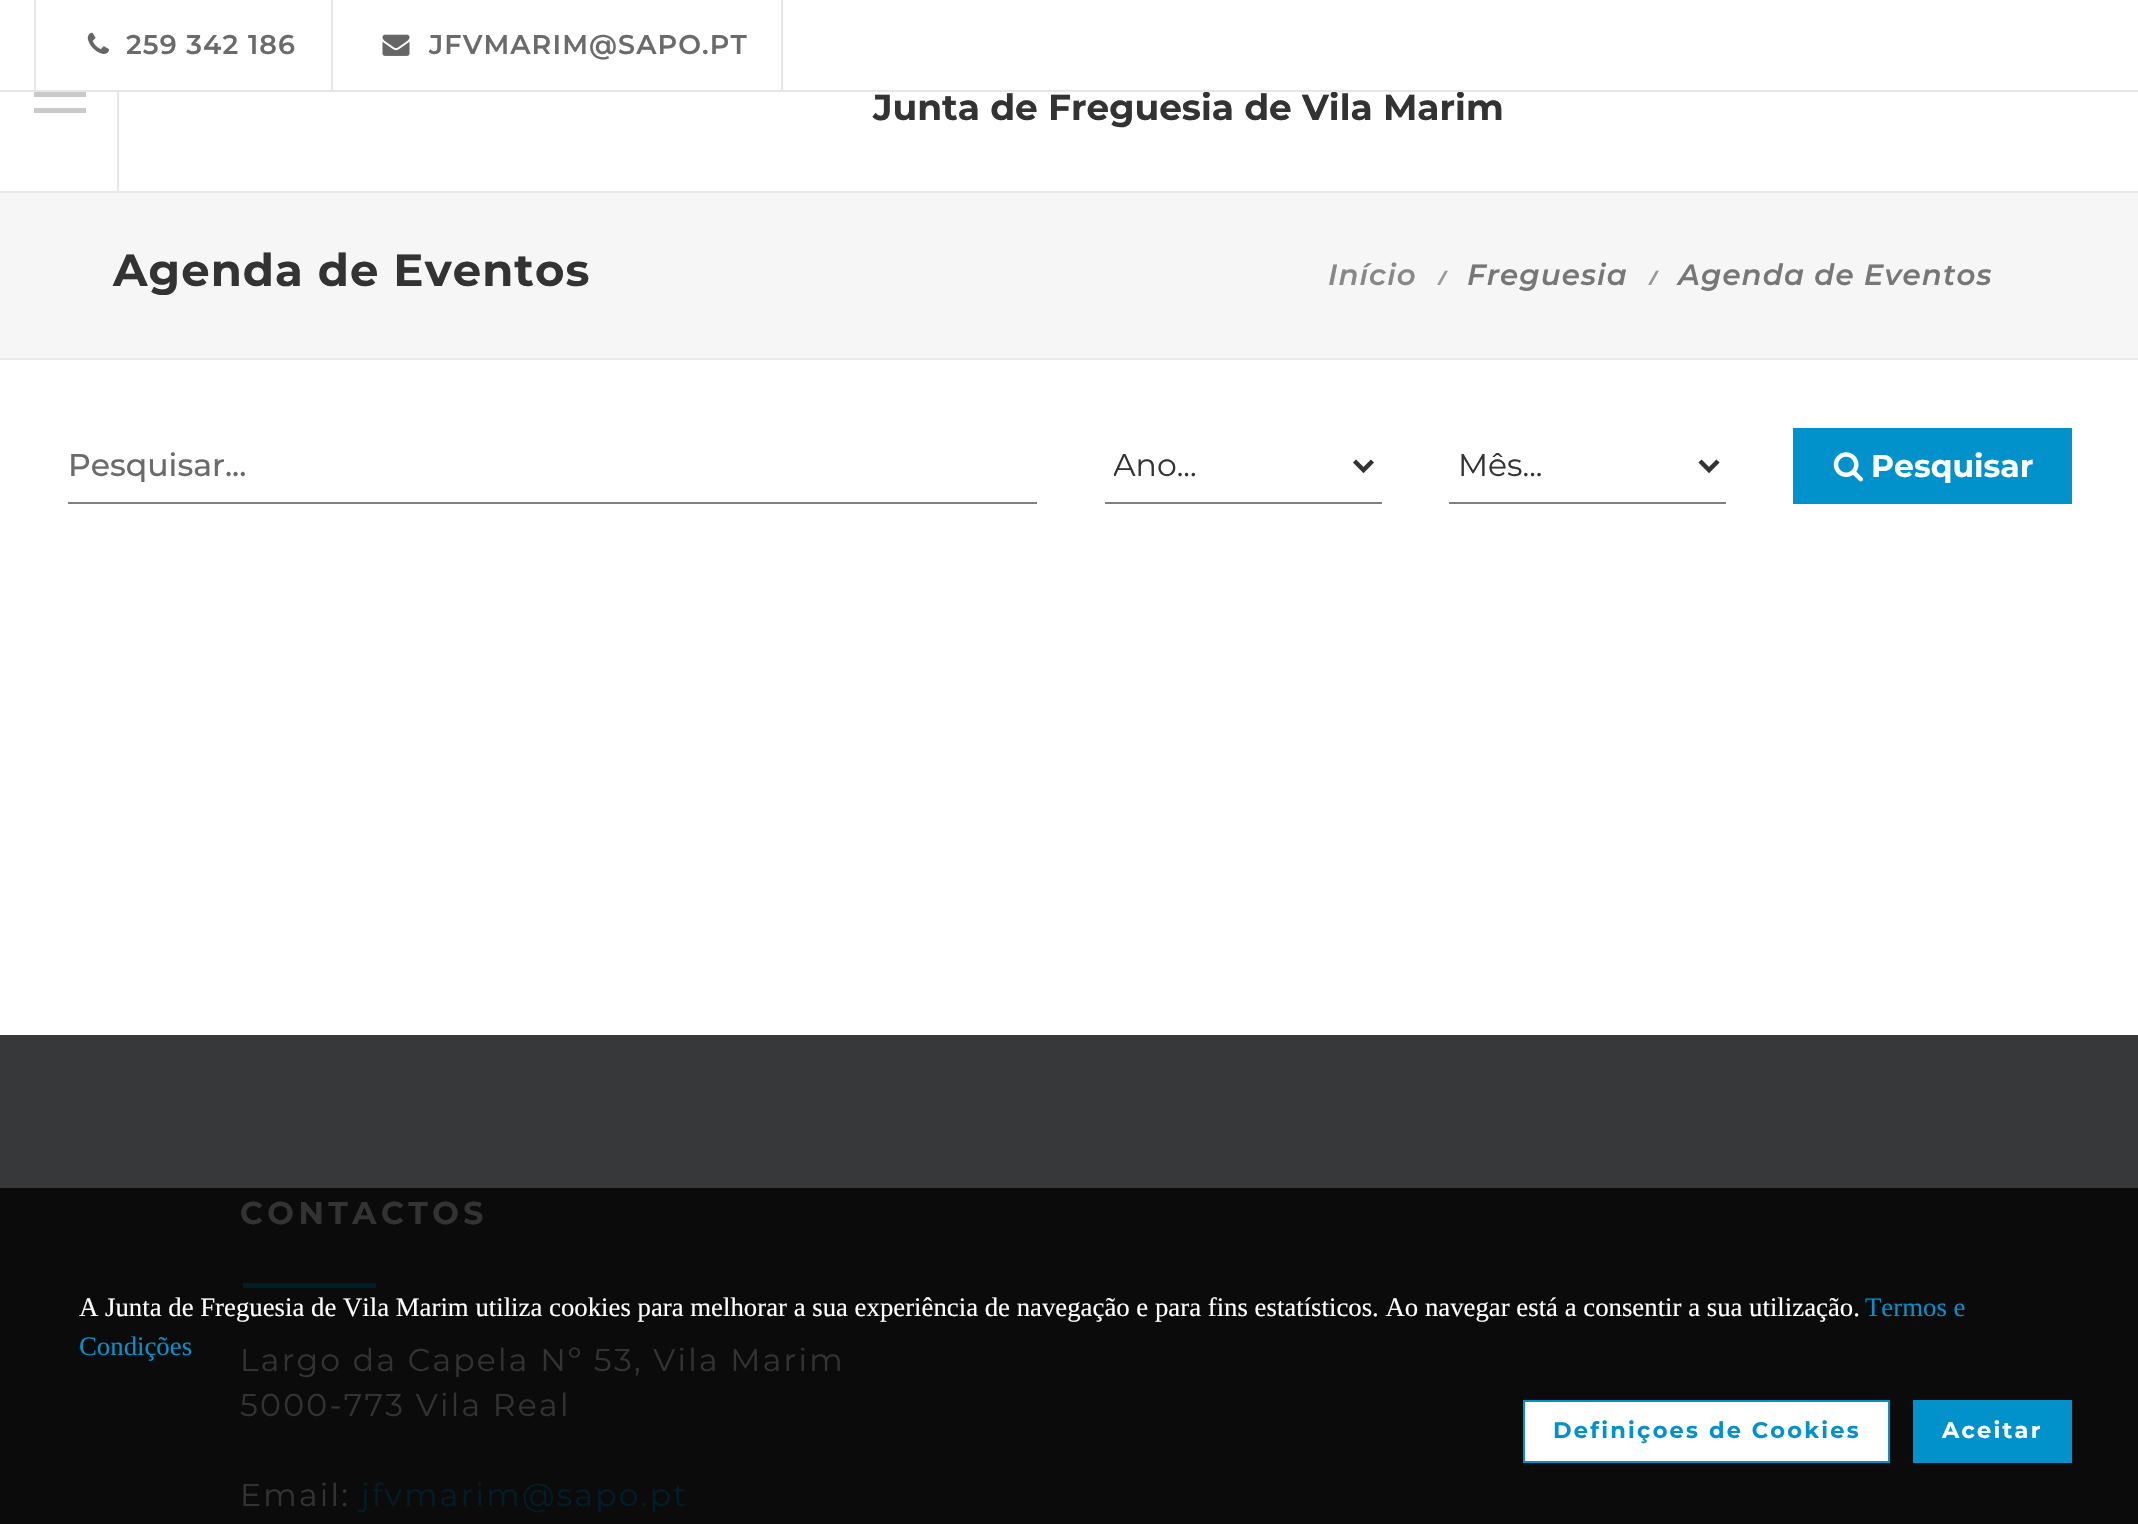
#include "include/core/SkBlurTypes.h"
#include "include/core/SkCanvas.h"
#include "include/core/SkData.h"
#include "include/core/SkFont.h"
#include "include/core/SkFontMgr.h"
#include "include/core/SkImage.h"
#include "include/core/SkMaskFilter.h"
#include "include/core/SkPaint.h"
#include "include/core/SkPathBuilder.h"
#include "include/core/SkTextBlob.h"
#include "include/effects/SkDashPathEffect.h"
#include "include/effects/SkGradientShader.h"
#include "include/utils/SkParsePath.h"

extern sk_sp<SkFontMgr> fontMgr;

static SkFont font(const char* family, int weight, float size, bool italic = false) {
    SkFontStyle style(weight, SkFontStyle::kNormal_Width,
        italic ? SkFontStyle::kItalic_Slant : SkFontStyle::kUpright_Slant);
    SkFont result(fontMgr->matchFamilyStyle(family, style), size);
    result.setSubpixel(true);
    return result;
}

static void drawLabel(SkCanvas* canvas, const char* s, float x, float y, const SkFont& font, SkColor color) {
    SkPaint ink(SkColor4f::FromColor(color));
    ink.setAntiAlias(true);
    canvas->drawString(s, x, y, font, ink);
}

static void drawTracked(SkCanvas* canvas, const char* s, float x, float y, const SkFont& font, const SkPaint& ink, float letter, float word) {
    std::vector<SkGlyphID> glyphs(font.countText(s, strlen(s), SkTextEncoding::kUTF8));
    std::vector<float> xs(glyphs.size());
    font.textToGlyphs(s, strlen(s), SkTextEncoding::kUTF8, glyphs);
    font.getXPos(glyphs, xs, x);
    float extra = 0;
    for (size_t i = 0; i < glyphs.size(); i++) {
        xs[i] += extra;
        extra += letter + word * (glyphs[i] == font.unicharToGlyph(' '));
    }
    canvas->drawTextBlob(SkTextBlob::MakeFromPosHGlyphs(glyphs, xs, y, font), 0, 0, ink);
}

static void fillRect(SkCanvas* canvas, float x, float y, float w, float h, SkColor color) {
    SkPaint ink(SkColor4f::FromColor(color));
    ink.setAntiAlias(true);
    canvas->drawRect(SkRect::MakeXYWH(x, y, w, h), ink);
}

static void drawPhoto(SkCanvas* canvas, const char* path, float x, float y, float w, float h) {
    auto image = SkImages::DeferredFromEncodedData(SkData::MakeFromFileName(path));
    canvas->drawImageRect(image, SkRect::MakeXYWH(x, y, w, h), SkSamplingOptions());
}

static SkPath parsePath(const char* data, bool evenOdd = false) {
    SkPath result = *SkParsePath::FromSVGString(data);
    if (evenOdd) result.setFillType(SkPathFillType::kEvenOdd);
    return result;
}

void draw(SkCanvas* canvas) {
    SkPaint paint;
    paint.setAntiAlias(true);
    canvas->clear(0xFFFFFFFF);
    SkFont font1 = font("Montserrat", 700, 36);
    drawLabel(canvas, "Junta de Freguesia de Vila Marim", 873, 120, font1, 0xFF333333);
    fillRect(canvas, 0, 90, 2138, 2, 0xFFE6E6E6);
    fillRect(canvas, 34, 0, 2, 90, 0xFFE6E6E6);
    drawPhoto(canvas, "assets/img1.png", 87, 32, 22, 22);
    SkFont font2 = font("Montserrat", 600, 27);
    paint.setColor(0xFF6B6B6B);
    drawTracked(canvas, "259 342 186", 126, 54, font2, paint, 1.1f, 0);
    fillRect(canvas, 781, 0, 2, 90, 0xFFE6E6E6);
    fillRect(canvas, 331, 0, 2, 90, 0xFFE6E6E6);
    drawPhoto(canvas, "assets/img2.png", 382, 34, 28, 22);
    drawTracked(canvas, "JFVMARIM@SAPO.PT", 429, 54, font2, paint, 1.1f, 0);
    fillRect(canvas, 117, 92, 2, 99, 0xFFE6E6E6);
    fillRect(canvas, 34, 92, 52, 5, 0xFFC9C9C9);
    fillRect(canvas, 34, 108, 52, 5, 0xFFC9C9C9);
    fillRect(canvas, 0, 193, 2138, 165, 0xFFF6F6F6);
    fillRect(canvas, 0, 191, 2138, 2, 0xFFEAEAEA);
    fillRect(canvas, 0, 358, 2138, 2, 0xFFEAEAEA);
    SkFont font3 = font("Montserrat", 700, 45);
    paint.setColor(0xFF333333);
    drawTracked(canvas, "Agenda de Eventos", 113, 286, font3, paint, 1.1f, 0);
    SkFont font4 = font("Montserrat", 600, 29.25f, true);
    paint.setColor(0xFF888888);
    drawTracked(canvas, "Início", 1328, 285, font4, paint, 1.1f, 0);
    SkFont font5 = font("Open Sans", 700, 20, true);
    paint.setColor(0xFF999999);
    drawTracked(canvas, "/", 1438, 285, font5, paint, 1.1f, 0);
    paint.setColor(0xFF777777);
    drawTracked(canvas, "Freguesia", 1467, 285, font4, paint, 1.1f, 0);
    paint.setColor(0xFF999999);
    drawTracked(canvas, "/", 1649, 285, font5, paint, 1.1f, 0);
    paint.setColor(0xFF777777);
    drawTracked(canvas, "Agenda de Eventos", 1678, 285, font4, paint, 1.1f, 0);
    fillRect(canvas, 68, 502, 969, 2, 0xFF808080);
    SkFont font6 = font("Montserrat", 500, 31.5f);
    drawLabel(canvas, "Pesquisar...", 68, 476, font6, 0xFF6B6B6B);
    fillRect(canvas, 1105, 502, 277, 2, 0xFF808080);
    paint.setStroke(true);
    paint.setStrokeWidth(4.5f);
    paint.setColor(0xFF333333);
    canvas->drawPath(parsePath("M1354.5 461L1363.5 470L1372.5 461"), paint);
    canvas->save();
    canvas->clipRect(SkRect::MakeXYWH(1114, 441, 232, 45));
    SkFont font7 = font("Montserrat", 400, 31.5f);
    drawLabel(canvas, "Ano...", 1113, 476, font7, 0xFF333333);
    canvas->restore();
    fillRect(canvas, 1449, 502, 277, 2, 0xFF808080);
    canvas->drawPath(parsePath("M1700 461L1709 470L1718 461"), paint);
    drawLabel(canvas, "Mês...", 1458, 476, font7, 0xFF333333);
    fillRect(canvas, 1793, 428, 279, 76, 0xFF0292CB);
    drawPhoto(canvas, "assets/img3.png", 1833, 452, 30, 30);
    SkFont font8 = font("Montserrat", 700, 31.5f);
    drawLabel(canvas, "Pesquisar", 1871, 477, font8, 0xFFFFFFFF);
    fillRect(canvas, 0, 1035, 2138, 153, 0xFF363839);
    fillRect(canvas, 0, 1188, 2138, 336, 0xFF0B0B0B);
    paint.setStroke(false);
    drawTracked(canvas, "CONTACTOS", 240, 1224, font8, paint, 4.5f, 0);
    fillRect(canvas, 243, 1283, 133, 5, 0xFF001D29);
    drawTracked(canvas, "Largo da Capela Nº 53, Vila Marim", 240, 1371, font7, paint, 2.25f, 0);
    drawTracked(canvas, "5000-773 Vila Real", 240, 1416, font7, paint, 2.25f, 0);
    drawTracked(canvas, "Email:", 240, 1506, font7, paint, 2.25f, 0);
    paint.setColor(0xFF001D29);
    drawTracked(canvas, "jfvmarim@sapo.pt", 361, 1506, font7, paint, 2.25f, 0);
    SkFont font9 = font("Liberation Serif", 400, 26.78f);
    drawLabel(canvas, "A Junta de Freguesia de Vila Marim utiliza cookies para melhorar a sua experiência de navegação e para fins estatísticos. Ao navegar está a consentir a sua utilização.", 79, 1316, font9, 0xFFFFFFFF);
    drawLabel(canvas, "Termos e", 1865, 1316, font9, 0xFF0292CB);
    drawLabel(canvas, "Condições", 79, 1355, font9, 0xFF0292CB);
    paint.setColor(0xFFFFFFFF);
    canvas->drawRect(SkRect::MakeXYWH(1524, 1401, 365, 61), paint);
    paint.setStroke(true);
    paint.setStrokeWidth(2);
    paint.setColor(0xFF0292CB);
    canvas->drawRect(SkRect::MakeXYWH(1524, 1401, 365, 61), paint);
    SkFont font10 = font("Montserrat", 700, 22.5f);
    paint.setStroke(false);
    drawTracked(canvas, "Definiçoes de Cookies", 1553, 1438, font10, paint, 2.25f, 0);
    fillRect(canvas, 1913, 1400, 159, 63, 0xFF0292CB);
    paint.setColor(0xFFFFFFFF);
    drawTracked(canvas, "Aceitar", 1942, 1438, font10, paint, 2.25f, 0);
}
